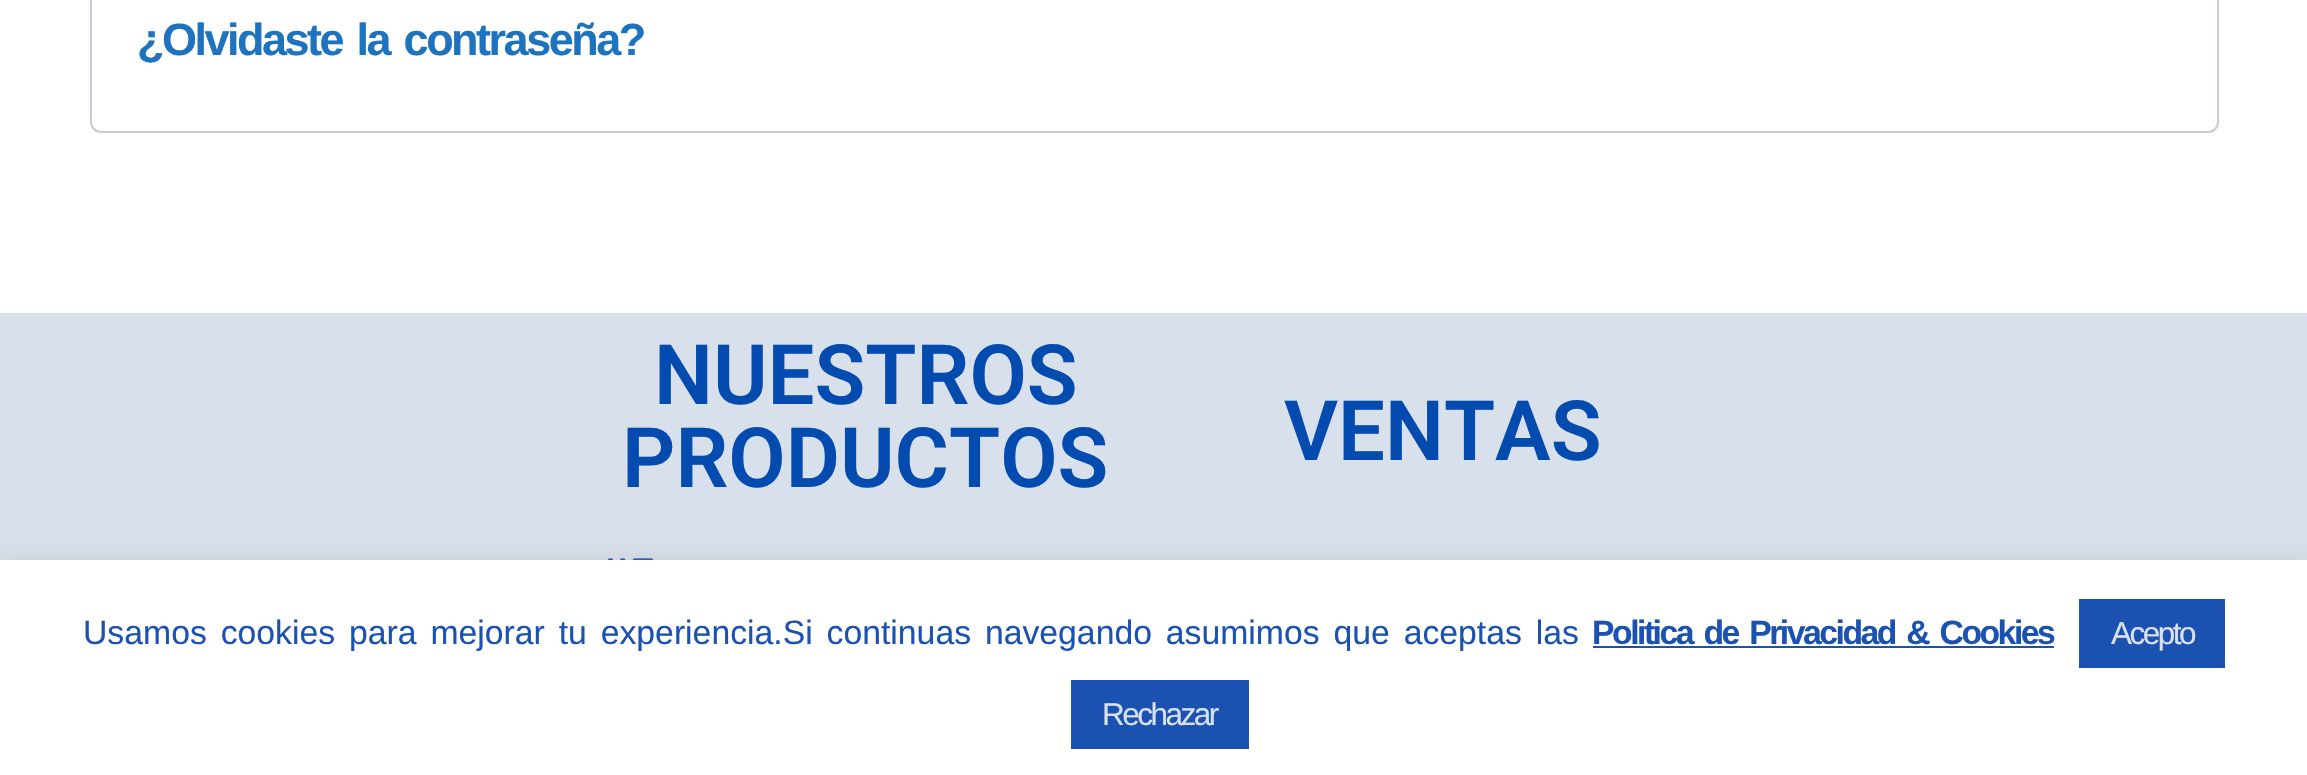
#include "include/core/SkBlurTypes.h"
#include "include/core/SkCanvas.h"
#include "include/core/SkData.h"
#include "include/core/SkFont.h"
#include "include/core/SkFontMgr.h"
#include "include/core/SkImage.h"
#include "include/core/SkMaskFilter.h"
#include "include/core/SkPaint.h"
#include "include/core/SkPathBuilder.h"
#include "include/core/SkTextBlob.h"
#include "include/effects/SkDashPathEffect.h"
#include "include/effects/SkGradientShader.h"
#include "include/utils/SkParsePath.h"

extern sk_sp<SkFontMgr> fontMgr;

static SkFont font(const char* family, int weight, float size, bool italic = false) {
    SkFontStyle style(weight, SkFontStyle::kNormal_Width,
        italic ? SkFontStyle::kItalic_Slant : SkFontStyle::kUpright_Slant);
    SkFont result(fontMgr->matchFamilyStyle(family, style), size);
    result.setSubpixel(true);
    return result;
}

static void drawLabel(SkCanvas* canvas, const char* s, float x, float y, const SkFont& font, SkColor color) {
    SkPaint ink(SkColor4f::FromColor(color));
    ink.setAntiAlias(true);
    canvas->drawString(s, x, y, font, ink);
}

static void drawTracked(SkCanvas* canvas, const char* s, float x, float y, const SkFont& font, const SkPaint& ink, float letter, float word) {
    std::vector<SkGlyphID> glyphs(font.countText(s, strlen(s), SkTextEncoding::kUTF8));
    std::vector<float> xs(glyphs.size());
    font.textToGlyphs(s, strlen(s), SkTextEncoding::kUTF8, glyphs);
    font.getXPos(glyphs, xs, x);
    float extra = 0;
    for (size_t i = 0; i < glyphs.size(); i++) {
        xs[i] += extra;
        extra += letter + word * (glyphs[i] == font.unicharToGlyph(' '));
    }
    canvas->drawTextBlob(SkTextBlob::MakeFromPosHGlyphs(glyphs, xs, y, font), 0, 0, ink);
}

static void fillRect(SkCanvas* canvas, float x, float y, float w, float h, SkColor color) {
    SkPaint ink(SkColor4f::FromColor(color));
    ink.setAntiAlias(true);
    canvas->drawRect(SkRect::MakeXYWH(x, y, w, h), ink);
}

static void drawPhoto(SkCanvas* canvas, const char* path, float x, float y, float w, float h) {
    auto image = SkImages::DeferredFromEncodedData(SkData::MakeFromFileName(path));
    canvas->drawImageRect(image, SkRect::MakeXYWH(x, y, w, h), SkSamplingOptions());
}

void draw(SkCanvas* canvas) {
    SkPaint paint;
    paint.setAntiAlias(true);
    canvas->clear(0xFFD8E0EB);
    fillRect(canvas, 0, 0, 2307, 313, 0xFFFFFFFF);
    paint.setStroke(true);
    paint.setStrokeWidth(2);
    paint.setColor(0xFFCFC8D8);
    canvas->drawRoundRect(SkRect::MakeXYWH(91, -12, 2127, 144), 10, 10, paint);
    SkFont font1 = font("Liberation Sans", 700, 45);
    paint.setStroke(false);
    paint.setColor(0xFF1E73BE);
    drawTracked(canvas, "¿Olvidaste la contraseña?", 137, 55, font1, paint, -2.5f, 4.5f);
    SkFont font2 = font("Roboto", 600, 83.25f);
    drawLabel(canvas, "NUESTROS", 654, 404, font2, 0xFF034BAE);
    drawLabel(canvas, "PRODUCTOS", 622, 487, font2, 0xFF034BAE);
    drawPhoto(canvas, "assets/img1.png", 607, 558, 47, 2);
    drawLabel(canvas, "VENTAS", 1284, 460, font2, 0xFF034BAE);
    paint.setColor(0x4DACABAB);
    paint.setMaskFilter(SkMaskFilter::MakeBlur(kNormal_SkBlurStyle, 11));
    canvas->drawRect(SkRect::MakeXYWH(0, 558, 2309, 216), paint);
    paint.setMaskFilter(nullptr);
    fillRect(canvas, 0, 560, 2307, 215, 0xFFFFFFFF);
    SkFont font3 = font("Liberation Sans", 400, 33.75f);
    paint.setColor(0xFF1B52B1);
    drawTracked(canvas, "Usamos cookies para mejorar tu experiencia.Si continuas navegando asumimos que aceptas las", 83, 644, font3, paint, 0, 4.5f);
    SkFont font4 = font("Liberation Sans", 700, 33.75f);
    drawTracked(canvas, "Politica de Privacidad & Cookies", 1592, 644, font4, paint, -2.5f, 4.5f);
    fillRect(canvas, 1593, 646, 461, 2, 0xFF1B52B1);
    fillRect(canvas, 2079, 599, 146, 69, 0xFF1B52B1);
    SkFont font5 = font("Liberation Sans", 400, 31.5f);
    paint.setColor(0xFFD8E0EB);
    drawTracked(canvas, "Acepto", 2111, 644, font5, paint, -2.5f, 0);
    fillRect(canvas, 1071, 680, 178, 69, 0xFF1B52B1);
    drawTracked(canvas, "Rechazar", 1102, 725, font5, paint, -2.5f, 0);
}
